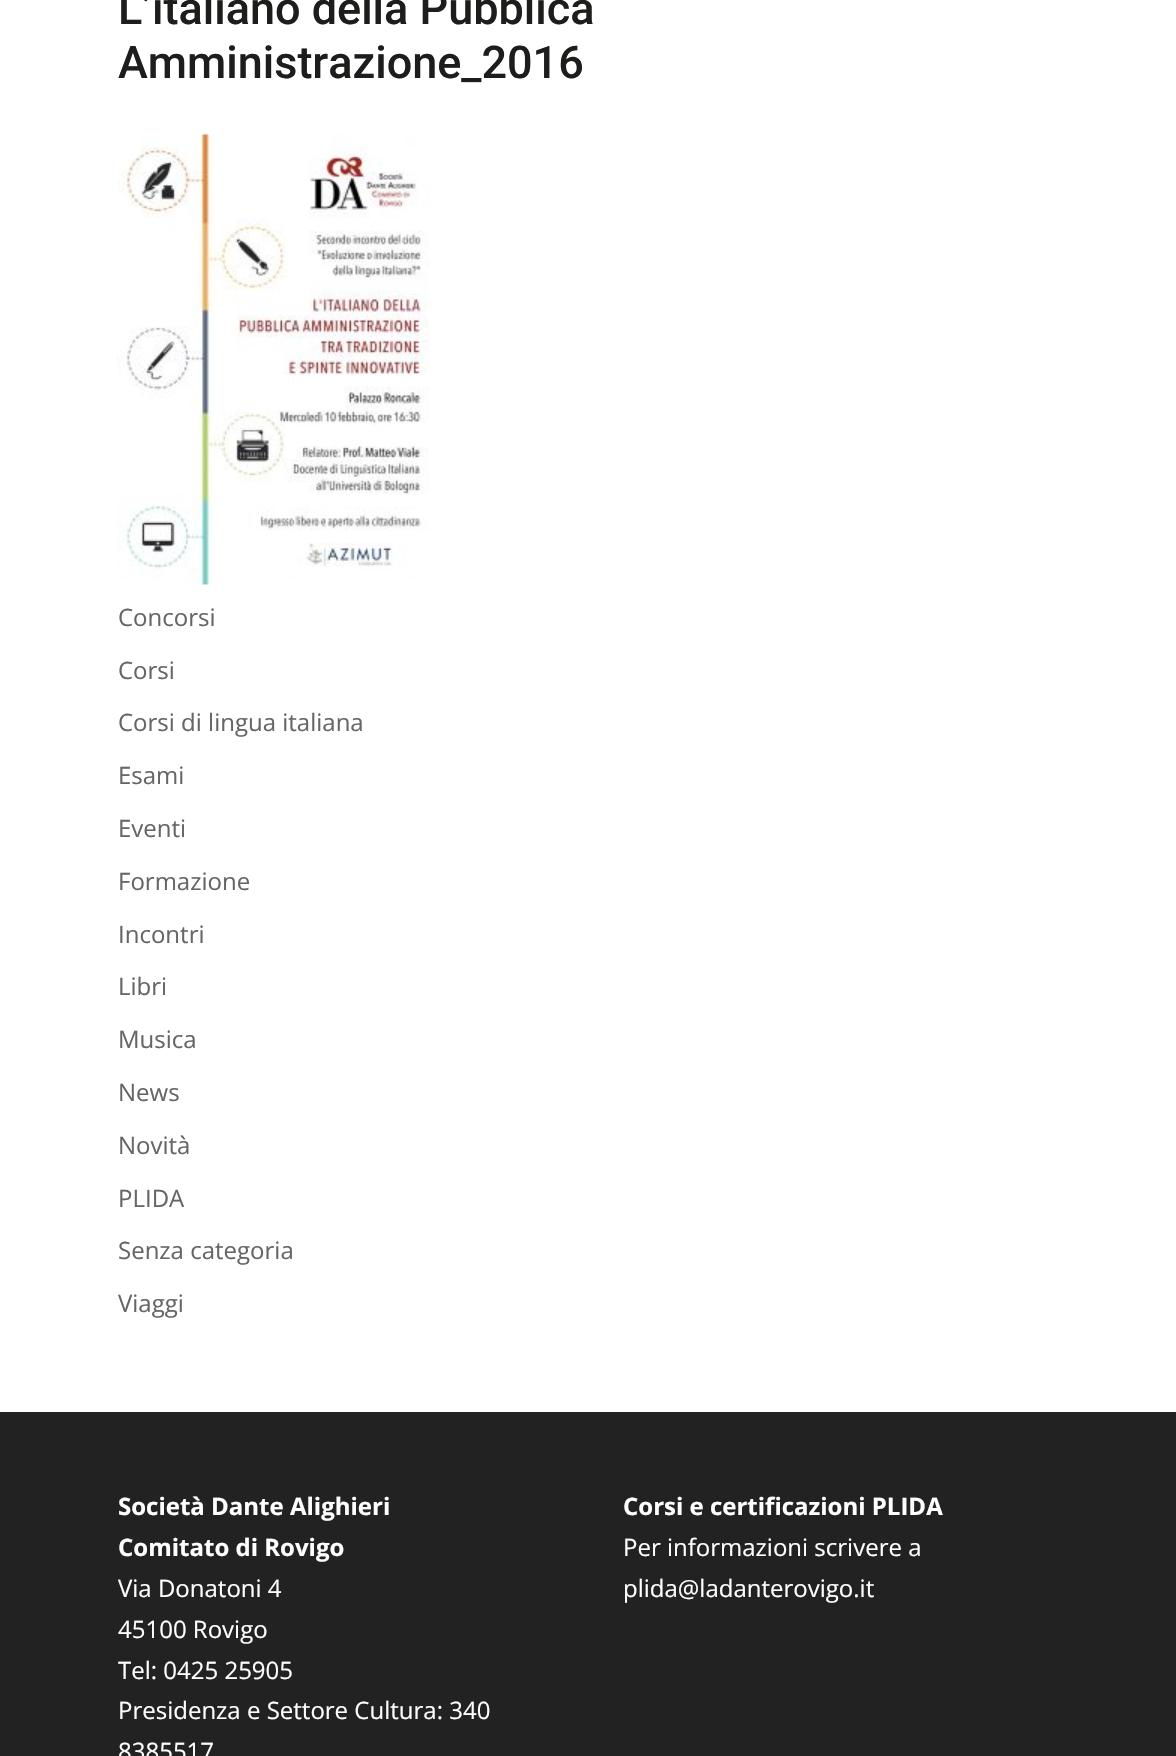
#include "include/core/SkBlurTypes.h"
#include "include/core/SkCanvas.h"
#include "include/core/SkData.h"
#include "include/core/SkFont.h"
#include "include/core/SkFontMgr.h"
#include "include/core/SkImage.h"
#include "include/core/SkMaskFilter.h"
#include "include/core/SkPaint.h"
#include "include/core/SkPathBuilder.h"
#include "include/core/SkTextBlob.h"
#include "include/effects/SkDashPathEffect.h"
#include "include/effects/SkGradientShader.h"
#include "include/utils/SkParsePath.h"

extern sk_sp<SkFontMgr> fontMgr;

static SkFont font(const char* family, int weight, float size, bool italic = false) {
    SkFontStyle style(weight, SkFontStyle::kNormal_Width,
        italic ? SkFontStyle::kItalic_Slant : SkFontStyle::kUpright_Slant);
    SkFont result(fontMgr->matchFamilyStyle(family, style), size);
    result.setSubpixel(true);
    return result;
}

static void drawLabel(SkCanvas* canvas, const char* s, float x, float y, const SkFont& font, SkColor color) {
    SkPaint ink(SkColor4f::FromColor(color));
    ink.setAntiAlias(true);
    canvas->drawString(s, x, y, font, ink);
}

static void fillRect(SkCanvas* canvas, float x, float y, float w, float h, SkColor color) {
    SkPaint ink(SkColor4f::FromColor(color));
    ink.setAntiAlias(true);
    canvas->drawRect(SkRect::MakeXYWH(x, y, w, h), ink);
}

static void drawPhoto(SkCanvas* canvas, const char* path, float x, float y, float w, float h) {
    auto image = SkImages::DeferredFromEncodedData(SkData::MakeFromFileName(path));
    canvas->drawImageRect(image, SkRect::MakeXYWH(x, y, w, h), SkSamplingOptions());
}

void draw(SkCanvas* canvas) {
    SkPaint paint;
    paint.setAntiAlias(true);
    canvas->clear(0xFFFFFFFF);
    SkFont font1 = font("Roboto", 500, 45);
    drawLabel(canvas, "L’italiano della Pubblica", 118, 24, font1, 0xFF1D1D1B);
    drawLabel(canvas, "Amministrazione_2016", 118, 78, font1, 0xFF1D1D1B);
    drawPhoto(canvas, "assets/img1.png", 117, 134, 312, 451);
    SkFont font2 = font("Open Sans", 400, 24);
    drawLabel(canvas, "Concorsi", 118, 626, font2, 0xFF666666);
    drawLabel(canvas, "Corsi", 118, 679, font2, 0xFF666666);
    drawLabel(canvas, "Corsi di lingua italiana", 118, 731, font2, 0xFF666666);
    drawLabel(canvas, "Esami", 118, 784, font2, 0xFF666666);
    drawLabel(canvas, "Eventi", 118, 837, font2, 0xFF666666);
    drawLabel(canvas, "Formazione", 118, 890, font2, 0xFF666666);
    drawLabel(canvas, "Incontri", 118, 943, font2, 0xFF666666);
    drawLabel(canvas, "Libri", 118, 995, font2, 0xFF666666);
    drawLabel(canvas, "Musica", 118, 1048, font2, 0xFF666666);
    drawLabel(canvas, "News", 118, 1101, font2, 0xFF666666);
    drawLabel(canvas, "Novità", 118, 1154, font2, 0xFF666666);
    drawLabel(canvas, "PLIDA", 118, 1207, font2, 0xFF666666);
    drawLabel(canvas, "Senza categoria", 118, 1259, font2, 0xFF666666);
    drawLabel(canvas, "Viaggi", 118, 1312, font2, 0xFF666666);
    fillRect(canvas, 0, 1412, 1176, 344, 0xFF222222);
    SkFont font3 = font("Open Sans", 700, 24);
    drawLabel(canvas, "Società Dante Alighieri", 118, 1515, font3, 0xFFFFFFFF);
    drawLabel(canvas, "Comitato di Rovigo", 118, 1556, font3, 0xFFFFFFFF);
    drawLabel(canvas, "Via Donatoni 4", 118, 1597, font2, 0xFFFFFFFF);
    drawLabel(canvas, "45100 Rovigo", 118, 1638, font2, 0xFFFFFFFF);
    drawLabel(canvas, "Tel: 0425 25905", 118, 1679, font2, 0xFFFFFFFF);
    drawLabel(canvas, "Presidenza e Settore Cultura: 340", 118, 1719, font2, 0xFFFFFFFF);
    drawLabel(canvas, "8385517", 118, 1760, font2, 0xFFFFFFFF);
    drawLabel(canvas, "Corsi e certificazioni PLIDA", 623, 1515, font3, 0xFFFFFFFF);
    drawLabel(canvas, "Per informazioni scrivere a", 623, 1556, font2, 0xFFFFFFFF);
    drawLabel(canvas, "plida@ladanterovigo.it", 623, 1597, font2, 0xFFFFFFFF);
}
